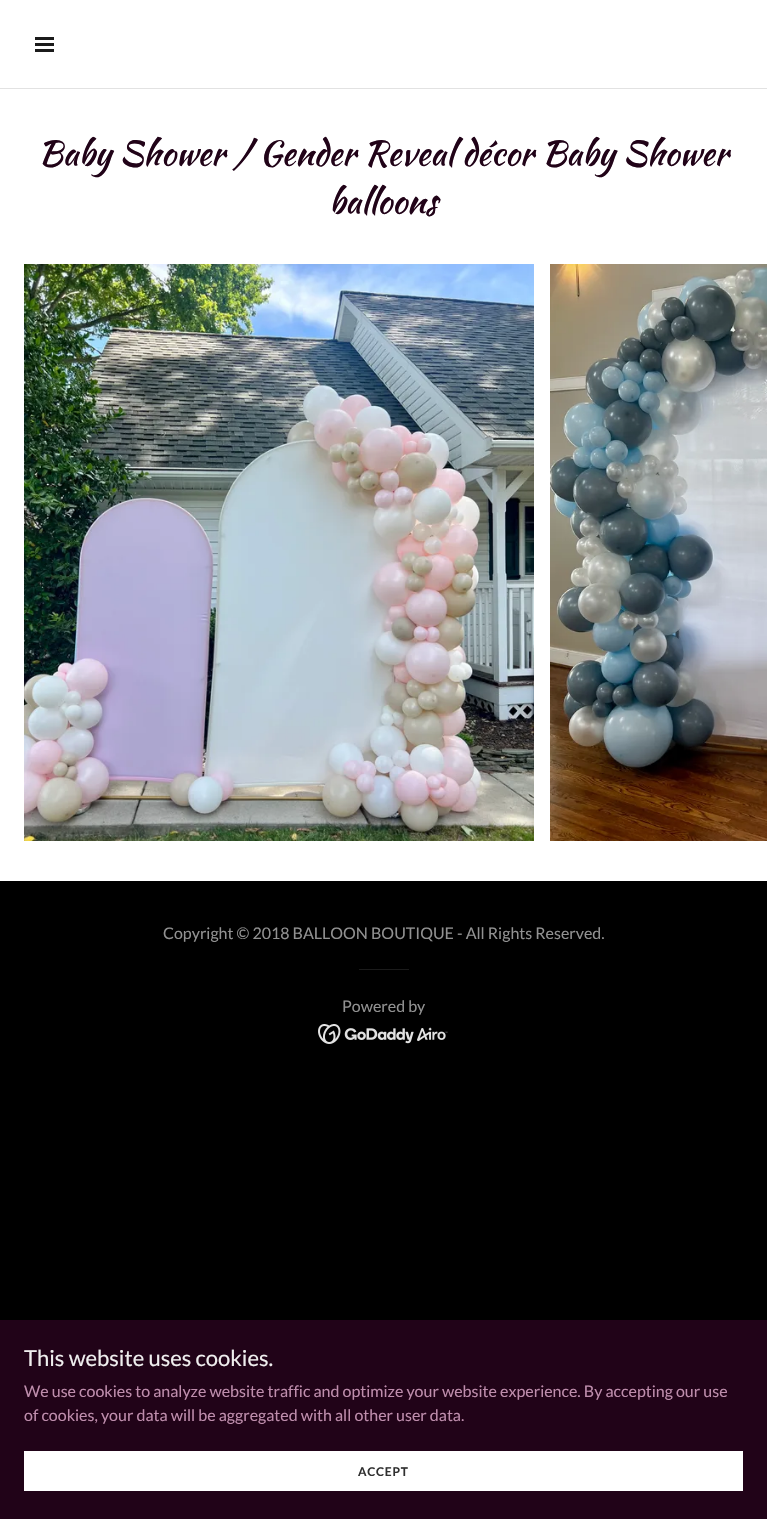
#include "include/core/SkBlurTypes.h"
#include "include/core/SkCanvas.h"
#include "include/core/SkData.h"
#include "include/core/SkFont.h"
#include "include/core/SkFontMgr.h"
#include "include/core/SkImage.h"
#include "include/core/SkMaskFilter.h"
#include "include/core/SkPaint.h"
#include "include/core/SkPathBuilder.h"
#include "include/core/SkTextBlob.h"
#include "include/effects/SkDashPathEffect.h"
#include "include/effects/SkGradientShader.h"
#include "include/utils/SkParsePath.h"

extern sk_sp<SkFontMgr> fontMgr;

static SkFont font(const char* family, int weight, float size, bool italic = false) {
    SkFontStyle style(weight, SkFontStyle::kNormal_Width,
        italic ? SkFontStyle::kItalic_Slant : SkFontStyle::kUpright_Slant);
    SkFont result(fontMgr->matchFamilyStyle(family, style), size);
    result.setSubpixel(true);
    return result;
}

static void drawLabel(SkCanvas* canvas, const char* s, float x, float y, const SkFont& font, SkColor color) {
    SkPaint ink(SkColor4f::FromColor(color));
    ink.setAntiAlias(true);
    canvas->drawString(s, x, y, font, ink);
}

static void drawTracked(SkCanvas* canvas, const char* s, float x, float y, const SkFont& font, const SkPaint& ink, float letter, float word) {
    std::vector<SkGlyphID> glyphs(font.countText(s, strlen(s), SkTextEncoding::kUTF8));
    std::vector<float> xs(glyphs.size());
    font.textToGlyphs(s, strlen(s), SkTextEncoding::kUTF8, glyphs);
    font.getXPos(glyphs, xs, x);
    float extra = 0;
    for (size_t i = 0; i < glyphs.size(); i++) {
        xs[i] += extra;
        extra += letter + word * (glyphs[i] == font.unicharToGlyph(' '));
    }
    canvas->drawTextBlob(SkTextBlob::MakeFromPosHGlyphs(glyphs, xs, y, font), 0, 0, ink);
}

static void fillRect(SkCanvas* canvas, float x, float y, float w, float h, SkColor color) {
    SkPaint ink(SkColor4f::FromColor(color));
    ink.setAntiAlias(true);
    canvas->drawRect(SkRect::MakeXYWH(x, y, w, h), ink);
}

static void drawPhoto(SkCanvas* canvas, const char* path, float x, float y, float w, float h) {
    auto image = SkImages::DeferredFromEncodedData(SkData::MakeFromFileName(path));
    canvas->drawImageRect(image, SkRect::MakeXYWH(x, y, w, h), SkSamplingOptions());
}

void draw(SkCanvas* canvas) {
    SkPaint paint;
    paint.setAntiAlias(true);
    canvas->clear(0xFF000000);
    fillRect(canvas, 0, 0, 767, 88, 0xFFFFFFFF);
    fillRect(canvas, 35, 37, 19, 3, 0xFF1B1B1B);
    fillRect(canvas, 35, 43, 19, 3, 0xFF1B1B1B);
    fillRect(canvas, 35, 49, 19, 3, 0xFF1B1B1B);
    fillRect(canvas, 0, 88, 767, 1, 0xFFE2E2E2);
    fillRect(canvas, 0, 89, 767, 792, 0xFFFFFFFF);
    SkFont font1 = font("Kaushan Script", 400, 34);
    drawLabel(canvas, "Baby Shower / Gender Reveal décor Baby Shower", 38, 165, font1, 0xFF210318);
    drawLabel(canvas, "balloons", 329, 213, font1, 0xFF210318);
    drawPhoto(canvas, "assets/img1.png", 24, 264, 510, 577);
    drawPhoto(canvas, "assets/img2.png", 550, 264, 217, 577);
    SkFont font2 = font("Lato", 400, 16);
    drawLabel(canvas, "Copyright © 2018 BALLOON BOUTIQUE - All Rights Reserved.", 163, 939, font2, 0xFF919191);
    fillRect(canvas, 359, 969, 50, 1, 0xFF1B1B1B);
    drawLabel(canvas, "Powered by", 342, 1012, font2, 0xFF919191);
    drawPhoto(canvas, "assets/img3.png", 318, 1024, 130, 20);
    fillRect(canvas, 0, 1320, 767, 199, 0xFF210318);
    SkFont font3 = font("Lato", 400, 22);
    drawLabel(canvas, "This website uses cookies.", 24, 1366, font3, 0xFFEFEEEE);
    drawLabel(canvas, "We use cookies to analyze website traffic and optimize your website experience. By accepting our use", 24, 1397, font2, 0xFFBE8DAC);
    drawLabel(canvas, "of cookies, your data will be aggregated with all other user data.", 24, 1421, font2, 0xFFBE8DAC);
    fillRect(canvas, 24, 1451, 719, 40, 0xFFFFFFFF);
    SkFont font4 = font("Lato", 700, 12);
    paint.setColor(0xFF303030);
    drawTracked(canvas, "ACCEPT", 358, 1476, font4, paint, 0.75f, 0);
}
